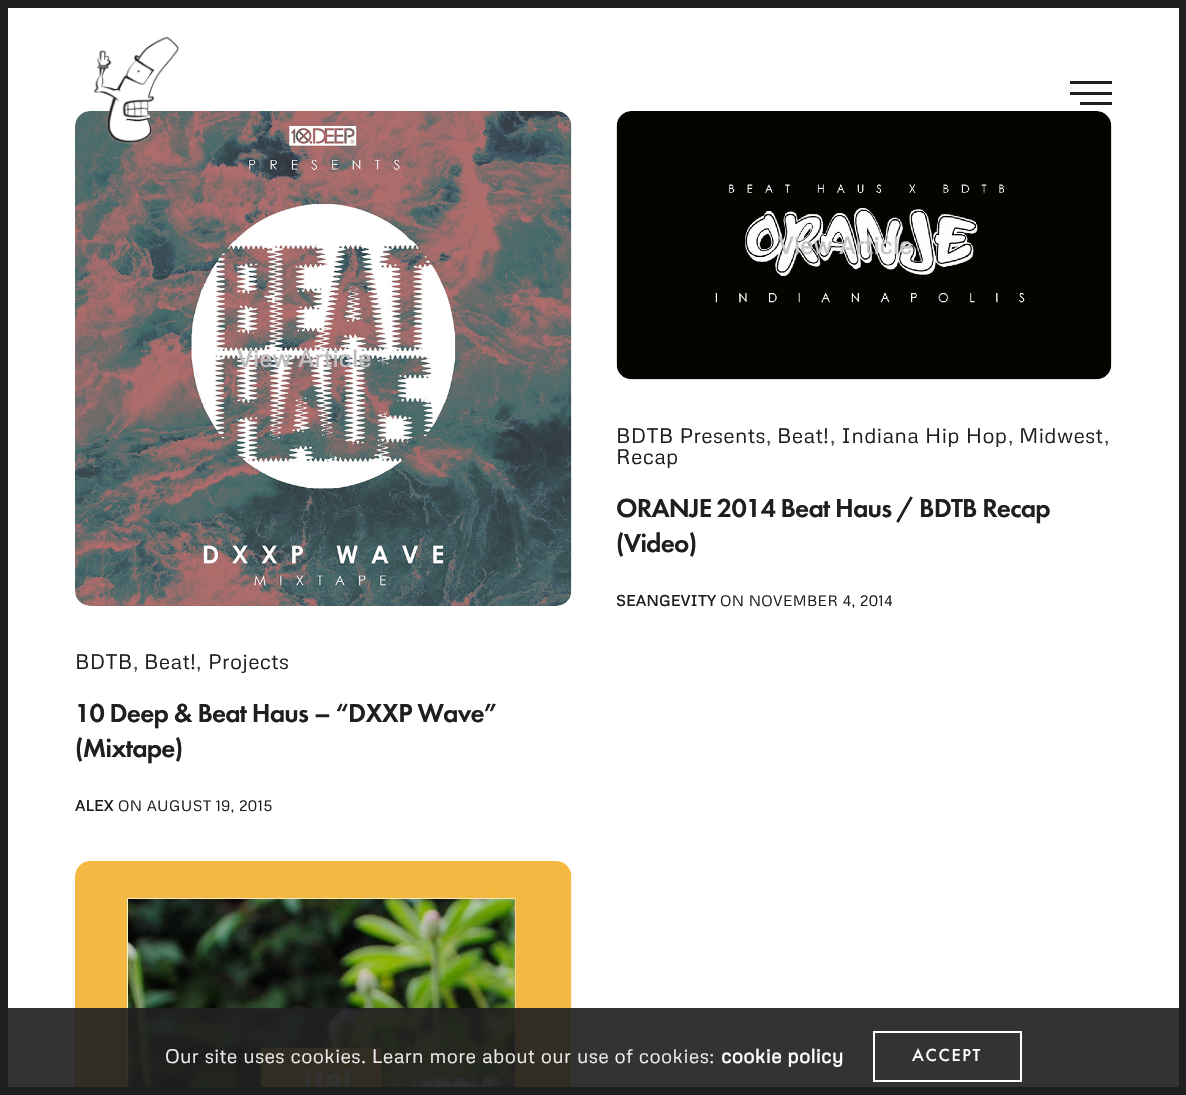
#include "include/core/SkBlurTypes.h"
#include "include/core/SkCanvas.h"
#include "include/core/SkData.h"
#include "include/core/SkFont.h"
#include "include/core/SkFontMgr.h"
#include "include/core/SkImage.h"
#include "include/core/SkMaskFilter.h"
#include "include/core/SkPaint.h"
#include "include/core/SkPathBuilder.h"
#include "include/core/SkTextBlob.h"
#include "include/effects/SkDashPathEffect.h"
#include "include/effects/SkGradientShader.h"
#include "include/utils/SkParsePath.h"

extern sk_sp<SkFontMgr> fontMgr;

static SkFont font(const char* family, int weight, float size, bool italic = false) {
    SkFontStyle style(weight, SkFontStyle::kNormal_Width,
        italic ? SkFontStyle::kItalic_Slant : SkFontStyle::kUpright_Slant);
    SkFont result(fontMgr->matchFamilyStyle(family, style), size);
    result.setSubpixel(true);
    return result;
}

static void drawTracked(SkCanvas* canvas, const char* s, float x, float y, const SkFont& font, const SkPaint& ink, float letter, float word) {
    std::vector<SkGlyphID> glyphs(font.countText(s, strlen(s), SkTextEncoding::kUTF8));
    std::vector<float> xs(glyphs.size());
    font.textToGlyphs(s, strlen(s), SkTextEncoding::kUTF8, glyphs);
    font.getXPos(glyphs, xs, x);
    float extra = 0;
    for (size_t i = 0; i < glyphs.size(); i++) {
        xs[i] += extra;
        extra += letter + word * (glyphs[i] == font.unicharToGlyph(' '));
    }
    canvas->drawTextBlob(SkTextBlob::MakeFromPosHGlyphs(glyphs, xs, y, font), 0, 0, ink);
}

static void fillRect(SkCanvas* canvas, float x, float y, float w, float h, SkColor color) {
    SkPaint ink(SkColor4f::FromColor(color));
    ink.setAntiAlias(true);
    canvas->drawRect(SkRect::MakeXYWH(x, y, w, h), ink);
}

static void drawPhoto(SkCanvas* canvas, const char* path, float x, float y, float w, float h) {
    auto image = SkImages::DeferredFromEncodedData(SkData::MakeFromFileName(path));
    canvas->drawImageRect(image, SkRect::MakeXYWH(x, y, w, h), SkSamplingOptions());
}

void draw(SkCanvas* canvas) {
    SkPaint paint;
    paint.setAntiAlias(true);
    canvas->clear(0xFFFFFFFF);
    drawPhoto(canvas, "assets/img2.png", 75, 111, 497, 495);
    drawPhoto(canvas, "assets/img1.png", 93, 36, 86, 108);
    fillRect(canvas, 1070, 81, 42, 3, 0xFF1F1F1F);
    fillRect(canvas, 1070, 92, 42, 3, 0xFF1F1F1F);
    fillRect(canvas, 1080, 102, 32, 3, 0xFF1F1F1F);
    drawPhoto(canvas, "assets/img3.png", 616, 111, 496, 269);
    drawPhoto(canvas, "assets/img4.png", 75, 861, 497, 226);
    fillRect(canvas, 8, 1008, 1171, 79, 0xE81F1F1F);
    paint.setStroke(true);
    paint.setStrokeWidth(2);
    paint.setColor(0xFFFFFFFF);
    canvas->drawRect(SkRect::MakeXYWH(874, 1032, 147, 49), paint);
    paint.setStrokeWidth(8);
    paint.setColor(0xFF1F1F1F);
    canvas->drawRect(SkRect::MakeXYWH(4, 4, 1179, 1087), paint);
    SkFont font1 = font("Metrophobic", 700, 24);
    paint.setStroke(false);
    paint.setColor(0xFFBFBDBD);
    drawTracked(canvas, "View Article", 237, 367, font1, paint, 0.35f, 0);
    SkFont font2 = font("Metrophobic", 400, 21);
    paint.setColor(0xFF1F1F1F);
    drawTracked(canvas, "BDTB", 75, 669, font2, paint, 0.35f, 0);
    paint.setColor(0xFF505050);
    drawTracked(canvas, ",", 133, 669, font2, paint, 0.35f, 0);
    paint.setColor(0xFF1F1F1F);
    drawTracked(canvas, "Beat!", 144, 669, font2, paint, 0.35f, 0);
    paint.setColor(0xFF505050);
    drawTracked(canvas, ",", 196, 669, font2, paint, 0.35f, 0);
    paint.setColor(0xFF1F1F1F);
    drawTracked(canvas, "Projects", 208, 669, font2, paint, 0.35f, 0);
    SkFont font3 = font("Futura PT", 500, 27);
    drawTracked(canvas, "10 Deep & Beat Haus – “DXXP Wave”", 75, 722, font3, paint, -0.8f, 0);
    drawTracked(canvas, "(Mixtape)", 75, 757, font3, paint, -0.8f, 0);
    SkFont font4 = font("Metrophobic", 700, 15);
    drawTracked(canvas, "ALEX", 75, 811, font4, paint, 0.35f, 0);
    SkFont font5 = font("Metrophobic", 400, 15);
    drawTracked(canvas, "ON AUGUST 19, 2015", 118, 811, font5, paint, 0.35f, 0);
    paint.setColor(0xFFC5C5C4);
    drawTracked(canvas, "View Article", 778, 254, font1, paint, 0.35f, 0);
    paint.setColor(0xFF1F1F1F);
    drawTracked(canvas, "BDTB Presents", 616, 443, font2, paint, 0.35f, 0);
    paint.setColor(0xFF505050);
    drawTracked(canvas, ",", 766, 443, font2, paint, 0.35f, 0);
    paint.setColor(0xFF1F1F1F);
    drawTracked(canvas, "Beat!", 777, 443, font2, paint, 0.35f, 0);
    paint.setColor(0xFF505050);
    drawTracked(canvas, ",", 830, 443, font2, paint, 0.35f, 0);
    paint.setColor(0xFF1F1F1F);
    drawTracked(canvas, "Indiana Hip Hop", 841, 443, font2, paint, 0.35f, 0);
    paint.setColor(0xFF505050);
    drawTracked(canvas, ",", 1008, 443, font2, paint, 0.35f, 0);
    paint.setColor(0xFF1F1F1F);
    drawTracked(canvas, "Midwest", 1019, 443, font2, paint, 0.35f, 0);
    paint.setColor(0xFF505050);
    drawTracked(canvas, ",", 1104, 443, font2, paint, 0.35f, 0);
    paint.setColor(0xFF1F1F1F);
    drawTracked(canvas, "Recap", 616, 464, font2, paint, 0.35f, 0);
    drawTracked(canvas, "ORANJE 2014 Beat Haus / BDTB Recap", 616, 517, font3, paint, -0.8f, 0);
    drawTracked(canvas, "(Video)", 616, 552, font3, paint, -0.8f, 0);
    drawTracked(canvas, "SEANGEVITY", 616, 606, font4, paint, 0.35f, 0);
    drawTracked(canvas, "ON NOVEMBER 4, 2014", 720, 606, font5, paint, 0.35f, 0);
    SkFont font6 = font("Metrophobic", 400, 19.5f);
    paint.setColor(0xFFEBEBEB);
    drawTracked(canvas, "Our site uses cookies. Learn more about our use of cookies:", 165, 1063, font6, paint, 0.35f, 0);
    SkFont font7 = font("Metrophobic", 700, 19.5f);
    paint.setColor(0xFFFFFFFF);
    drawTracked(canvas, "cookie policy", 721, 1063, font7, paint, 0.35f, 0);
    SkFont font8 = font("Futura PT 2", 500, 18);
    drawTracked(canvas, "ACCEPT", 912, 1061, font8, paint, 1.75f, 0);
}
